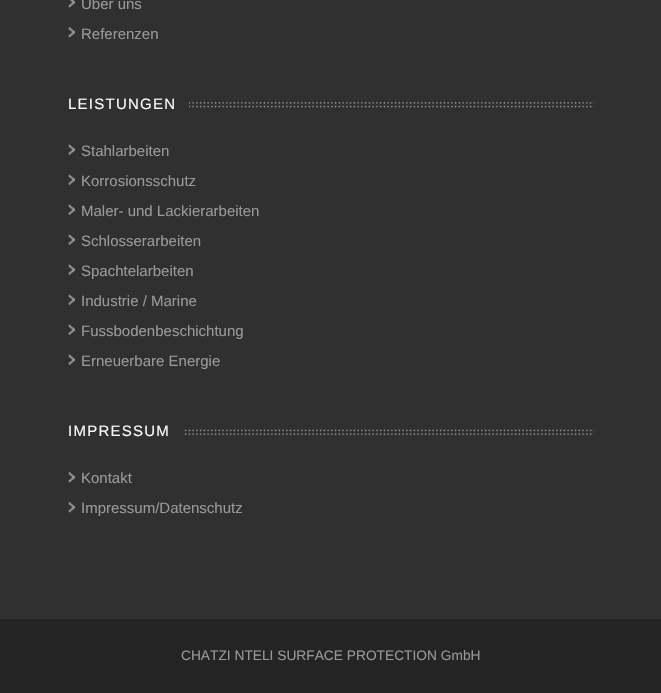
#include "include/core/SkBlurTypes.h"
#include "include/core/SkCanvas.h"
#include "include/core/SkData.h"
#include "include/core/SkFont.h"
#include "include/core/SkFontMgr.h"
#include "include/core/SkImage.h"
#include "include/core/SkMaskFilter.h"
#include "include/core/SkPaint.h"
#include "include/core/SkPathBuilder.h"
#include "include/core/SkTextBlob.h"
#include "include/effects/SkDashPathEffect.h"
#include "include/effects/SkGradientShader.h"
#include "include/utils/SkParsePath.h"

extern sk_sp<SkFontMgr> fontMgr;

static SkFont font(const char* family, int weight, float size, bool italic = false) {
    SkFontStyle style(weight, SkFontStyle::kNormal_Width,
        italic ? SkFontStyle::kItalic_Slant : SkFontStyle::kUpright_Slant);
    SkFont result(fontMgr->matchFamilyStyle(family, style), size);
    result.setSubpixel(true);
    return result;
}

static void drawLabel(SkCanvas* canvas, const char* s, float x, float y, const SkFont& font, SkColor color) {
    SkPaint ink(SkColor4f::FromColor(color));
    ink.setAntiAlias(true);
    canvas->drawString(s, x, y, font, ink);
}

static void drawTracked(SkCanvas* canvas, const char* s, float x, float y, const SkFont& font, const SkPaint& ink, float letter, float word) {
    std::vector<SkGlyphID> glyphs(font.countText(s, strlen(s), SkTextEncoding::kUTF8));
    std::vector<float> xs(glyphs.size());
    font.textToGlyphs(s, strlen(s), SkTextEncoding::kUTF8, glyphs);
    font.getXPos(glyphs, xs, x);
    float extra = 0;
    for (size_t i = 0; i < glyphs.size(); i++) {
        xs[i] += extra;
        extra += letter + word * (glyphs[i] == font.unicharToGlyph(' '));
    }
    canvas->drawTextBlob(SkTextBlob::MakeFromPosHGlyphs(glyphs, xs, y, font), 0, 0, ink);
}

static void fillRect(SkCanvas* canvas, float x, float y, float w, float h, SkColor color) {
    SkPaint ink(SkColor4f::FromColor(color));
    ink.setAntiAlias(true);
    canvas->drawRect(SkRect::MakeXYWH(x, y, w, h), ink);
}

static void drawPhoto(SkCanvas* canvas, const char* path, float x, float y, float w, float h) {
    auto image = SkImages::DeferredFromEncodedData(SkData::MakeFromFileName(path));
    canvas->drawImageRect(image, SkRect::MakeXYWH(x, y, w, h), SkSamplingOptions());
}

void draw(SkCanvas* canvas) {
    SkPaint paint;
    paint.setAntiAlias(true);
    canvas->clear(0xFF242424);
    fillRect(canvas, 0, 0, 661, 619, 0xFF303030);
    drawPhoto(canvas, "assets/img1.png", 68, 0, 7, 8);
    SkFont font1 = font("Liberation Sans", 400, 15);
    drawLabel(canvas, "Über uns", 81, 9, font1, 0xFF999999);
    drawPhoto(canvas, "assets/img2.png", 68, 27, 7, 11);
    drawLabel(canvas, "Referenzen", 81, 39, font1, 0xFF999999);
    drawPhoto(canvas, "assets/img3.png", 68, 102, 526, 6);
    fillRect(canvas, 69, 102, 120, 6, 0xFF303030);
    paint.setColor(0xFFFAFAFA);
    drawTracked(canvas, "LEISTUNGEN", 68, 109, font1, paint, 1.25f, 0);
    drawPhoto(canvas, "assets/img4.png", 68, 144, 7, 11);
    drawLabel(canvas, "Stahlarbeiten", 81, 156, font1, 0xFF999999);
    drawPhoto(canvas, "assets/img4.png", 68, 174, 7, 11);
    drawLabel(canvas, "Korrosionsschutz", 81, 186, font1, 0xFF999999);
    drawPhoto(canvas, "assets/img4.png", 68, 204, 7, 11);
    drawLabel(canvas, "Maler- und Lackierarbeiten", 81, 216, font1, 0xFF999999);
    drawPhoto(canvas, "assets/img4.png", 68, 234, 7, 11);
    drawLabel(canvas, "Schlosserarbeiten", 81, 246, font1, 0xFF999999);
    drawPhoto(canvas, "assets/img4.png", 68, 264, 7, 11);
    drawLabel(canvas, "Spachtelarbeiten", 81, 276, font1, 0xFF999999);
    drawPhoto(canvas, "assets/img4.png", 68, 294, 7, 11);
    drawLabel(canvas, "Industrie / Marine", 81, 306, font1, 0xFF999999);
    drawPhoto(canvas, "assets/img4.png", 68, 324, 7, 11);
    drawLabel(canvas, "Fussbodenbeschichtung", 81, 336, font1, 0xFF999999);
    drawPhoto(canvas, "assets/img5.png", 68, 354, 7, 11);
    drawLabel(canvas, "Erneuerbare Energie", 81, 366, font1, 0xFF999999);
    drawPhoto(canvas, "assets/img6.png", 68, 429, 526, 6);
    fillRect(canvas, 69, 429, 114, 6, 0xFF303030);
    drawTracked(canvas, "IMPRESSUM", 68, 436, font1, paint, 1.25f, 0);
    drawPhoto(canvas, "assets/img2.png", 68, 472, 7, 11);
    drawLabel(canvas, "Kontakt", 81, 483, font1, 0xFF999999);
    drawPhoto(canvas, "assets/img2.png", 68, 502, 7, 11);
    drawLabel(canvas, "Impressum/Datenschutz", 81, 513, font1, 0xFF999999);
    SkFont font2 = font("Liberation Sans", 400, 13.75f);
    drawLabel(canvas, "CHATZI NTELI SURFACE PROTECTION GmbH", 181, 660, font2, 0xFF999999);
}
